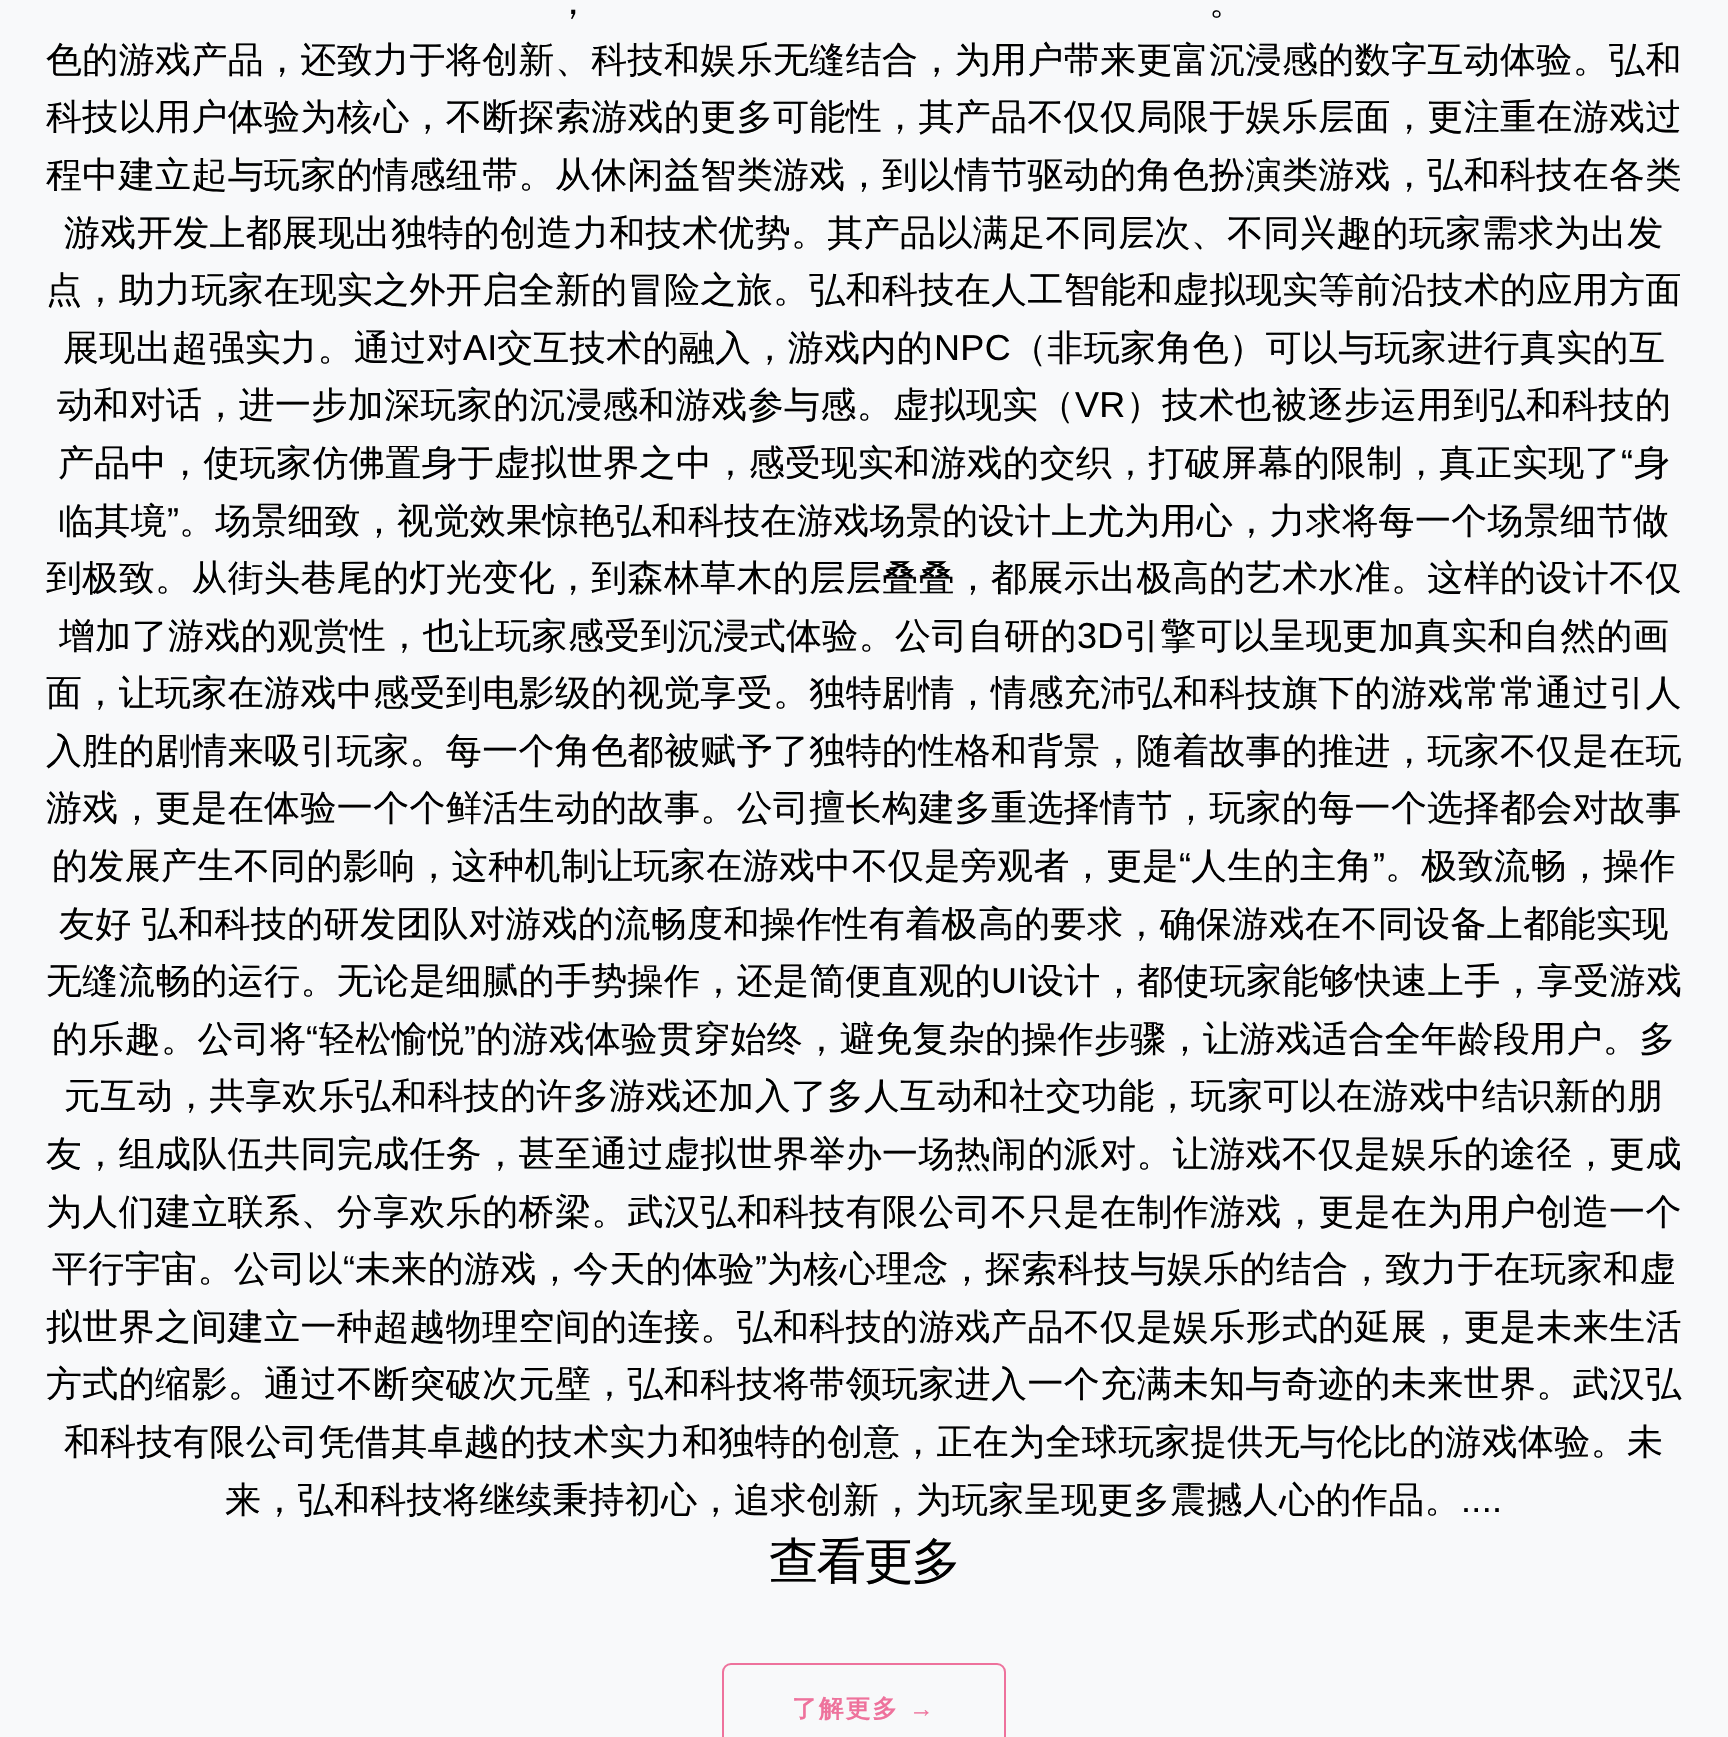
#include "include/core/SkBlurTypes.h"
#include "include/core/SkCanvas.h"
#include "include/core/SkData.h"
#include "include/core/SkFont.h"
#include "include/core/SkFontMgr.h"
#include "include/core/SkImage.h"
#include "include/core/SkMaskFilter.h"
#include "include/core/SkPaint.h"
#include "include/core/SkPathBuilder.h"
#include "include/core/SkTextBlob.h"
#include "include/effects/SkDashPathEffect.h"
#include "include/effects/SkGradientShader.h"
#include "include/utils/SkParsePath.h"

extern sk_sp<SkFontMgr> fontMgr;

static SkFont font(const char* family, int weight, float size, bool italic = false) {
    SkFontStyle style(weight, SkFontStyle::kNormal_Width,
        italic ? SkFontStyle::kItalic_Slant : SkFontStyle::kUpright_Slant);
    SkFont result(fontMgr->matchFamilyStyle(family, style), size);
    result.setSubpixel(true);
    return result;
}

static void drawTracked(SkCanvas* canvas, const char* s, float x, float y, const SkFont& font, const SkPaint& ink, float letter, float word) {
    std::vector<SkGlyphID> glyphs(font.countText(s, strlen(s), SkTextEncoding::kUTF8));
    std::vector<float> xs(glyphs.size());
    font.textToGlyphs(s, strlen(s), SkTextEncoding::kUTF8, glyphs);
    font.getXPos(glyphs, xs, x);
    float extra = 0;
    for (size_t i = 0; i < glyphs.size(); i++) {
        xs[i] += extra;
        extra += letter + word * (glyphs[i] == font.unicharToGlyph(' '));
    }
    canvas->drawTextBlob(SkTextBlob::MakeFromPosHGlyphs(glyphs, xs, y, font), 0, 0, ink);
}

void draw(SkCanvas* canvas) {
    SkPaint paint;
    paint.setAntiAlias(true);
    canvas->clear(0xFFF8F9FA);
    SkFont font1 = font("WenQuanYi Zen Hei", 500, 36);
    paint.setColor(0xFF000000);
    drawTracked(canvas, "，", 555, 14, font1, paint, 0.35f, 0);
    drawTracked(canvas, "。", 1209, 14, font1, paint, 0.35f, 0);
    drawTracked(canvas, "色的游戏产品，还致力于将创新、科技和娱乐无缝结合，为用户带来更富沉浸感的数字互动体验。弘和", 46, 72, font1, paint, 0.35f, 0);
    drawTracked(canvas, "科技以用户体验为核心，不断探索游戏的更多可能性，其产品不仅仅局限于娱乐层面，更注重在游戏过", 46, 129, font1, paint, 0.35f, 0);
    drawTracked(canvas, "程中建立起与玩家的情感纽带。从休闲益智类游戏，到以情节驱动的角色扮演类游戏，弘和科技在各类", 46, 187, font1, paint, 0.35f, 0);
    drawTracked(canvas, "游戏开发上都展现出独特的创造力和技术优势。其产品以满足不同层次、不同兴趣的玩家需求为出发", 64, 245, font1, paint, 0.35f, 0);
    drawTracked(canvas, "点，助力玩家在现实之外开启全新的冒险之旅。弘和科技在人工智能和虚拟现实等前沿技术的应用方面", 46, 302, font1, paint, 0.35f, 0);
    drawTracked(canvas, "展现出超强实力。通过对", 63, 360, font1, paint, 0.35f, 0);
    SkFont font2 = font("Liberation Sans", 400, 36);
    drawTracked(canvas, "AI", 463, 360, font2, paint, 0.35f, 0);
    drawTracked(canvas, "交互技术的融入，游戏内的", 497, 360, font1, paint, 0.35f, 0);
    drawTracked(canvas, "NPC", 934, 360, font2, paint, 0.35f, 0);
    drawTracked(canvas, "（非玩家角色）可以与玩家进行真实的互", 1011, 360, font1, paint, 0.35f, 0);
    drawTracked(canvas, "动和对话，进一步加深玩家的沉浸感和游戏参与感。虚拟现实（", 57, 417, font1, paint, 0.35f, 0);
    drawTracked(canvas, "VR", 1075, 417, font2, paint, 0.35f, 0);
    drawTracked(canvas, "）技术也被逐步运用到弘和科技的", 1126, 417, font1, paint, 0.35f, 0);
    drawTracked(canvas, "产品中，使玩家仿佛置身于虚拟世界之中，感受现实和游戏的交织，打破屏幕的限制，真正实现了", 58, 475, font1, paint, 0.35f, 0);
    drawTracked(canvas, "“", 1621, 475, font2, paint, 0.35f, 0);
    drawTracked(canvas, "身", 1634, 475, font1, paint, 0.35f, 0);
    drawTracked(canvas, "临其境", 58, 533, font1, paint, 0.35f, 0);
    drawTracked(canvas, "”", 167, 533, font2, paint, 0.35f, 0);
    drawTracked(canvas, "。场景细致，视觉效果惊艳弘和科技在游戏场景的设计上尤为用心，力求将每一个场景细节做", 179, 533, font1, paint, 0.35f, 0);
    drawTracked(canvas, "到极致。从街头巷尾的灯光变化，到森林草木的层层叠叠，都展示出极高的艺术水准。这样的设计不仅", 46, 590, font1, paint, 0.35f, 0);
    drawTracked(canvas, "增加了游戏的观赏性，也让玩家感受到沉浸式体验。公司自研的", 59, 648, font1, paint, 0.35f, 0);
    drawTracked(canvas, "3D", 1077, 648, font2, paint, 0.35f, 0);
    drawTracked(canvas, "引擎可以呈现更加真实和自然的画", 1124, 648, font1, paint, 0.35f, 0);
    drawTracked(canvas, "面，让玩家在游戏中感受到电影级的视觉享受。独特剧情，情感充沛弘和科技旗下的游戏常常通过引人", 46, 705, font1, paint, 0.35f, 0);
    drawTracked(canvas, "入胜的剧情来吸引玩家。每一个角色都被赋予了独特的性格和背景，随着故事的推进，玩家不仅是在玩", 46, 763, font1, paint, 0.35f, 0);
    drawTracked(canvas, "游戏，更是在体验一个个鲜活生动的故事。公司擅长构建多重选择情节，玩家的每一个选择都会对故事", 46, 820, font1, paint, 0.35f, 0);
    drawTracked(canvas, "的发展产生不同的影响，这种机制让玩家在游戏中不仅是旁观者，更是", 52, 878, font1, paint, 0.35f, 0);
    drawTracked(canvas, "“", 1179, 878, font2, paint, 0.35f, 0);
    drawTracked(canvas, "人生的主角", 1191, 878, font1, paint, 0.35f, 0);
    drawTracked(canvas, "”", 1373, 878, font2, paint, 0.35f, 0);
    drawTracked(canvas, "。极致流畅，操作", 1385, 878, font1, paint, 0.35f, 0);
    drawTracked(canvas, "友好 弘和科技的研发团队对游戏的流畅度和操作性有着极高的要求，确保游戏在不同设备上都能实现", 59, 936, font1, paint, 0.35f, -1);
    drawTracked(canvas, "无缝流畅的运行。无论是细腻的手势操作，还是简便直观的", 46, 993, font1, paint, 0.35f, 0);
    drawTracked(canvas, "UI", 991, 993, font2, paint, 0.35f, 0);
    drawTracked(canvas, "设计，都使玩家能够快速上手，享受游戏", 1028, 993, font1, paint, 0.35f, 0);
    drawTracked(canvas, "的乐趣。公司将", 52, 1051, font1, paint, 0.35f, 0);
    drawTracked(canvas, "“", 306, 1051, font2, paint, 0.35f, 0);
    drawTracked(canvas, "轻松愉悦", 319, 1051, font1, paint, 0.35f, 0);
    drawTracked(canvas, "”", 464, 1051, font2, paint, 0.35f, 0);
    drawTracked(canvas, "的游戏体验贯穿始终，避免复杂的操作步骤，让游戏适合全年龄段用户。多", 476, 1051, font1, paint, 0.35f, 0);
    drawTracked(canvas, "元互动，共享欢乐弘和科技的许多游戏还加入了多人互动和社交功能，玩家可以在游戏中结识新的朋", 64, 1108, font1, paint, 0.35f, 0);
    drawTracked(canvas, "友，组成队伍共同完成任务，甚至通过虚拟世界举办一场热闹的派对。让游戏不仅是娱乐的途径，更成", 46, 1166, font1, paint, 0.35f, 0);
    drawTracked(canvas, "为人们建立联系、分享欢乐的桥梁。武汉弘和科技有限公司不只是在制作游戏，更是在为用户创造一个", 46, 1224, font1, paint, 0.35f, 0);
    drawTracked(canvas, "平行宇宙。公司以", 52, 1281, font1, paint, 0.35f, 0);
    drawTracked(canvas, "“", 343, 1281, font2, paint, 0.35f, 0);
    drawTracked(canvas, "未来的游戏，今天的体验", 355, 1281, font1, paint, 0.35f, 0);
    drawTracked(canvas, "”", 755, 1281, font2, paint, 0.35f, 0);
    drawTracked(canvas, "为核心理念，探索科技与娱乐的结合，致力于在玩家和虚", 767, 1281, font1, paint, 0.35f, 0);
    drawTracked(canvas, "拟世界之间建立一种超越物理空间的连接。弘和科技的游戏产品不仅是娱乐形式的延展，更是未来生活", 46, 1339, font1, paint, 0.35f, 0);
    drawTracked(canvas, "方式的缩影。通过不断突破次元壁，弘和科技将带领玩家进入一个充满未知与奇迹的未来世界。武汉弘", 46, 1396, font1, paint, 0.35f, 0);
    drawTracked(canvas, "和科技有限公司凭借其卓越的技术实力和独特的创意，正在为全球玩家提供无与伦比的游戏体验。未", 64, 1454, font1, paint, 0.35f, 0);
    drawTracked(canvas, "来，弘和科技将继续秉持初心，追求创新，为玩家呈现更多震撼人心的作品。", 225, 1512, font1, paint, 0.35f, 0);
    drawTracked(canvas, "....", 1461, 1512, font2, paint, 0.35f, 0);
    SkFont font3 = font("WenQuanYi Zen Hei", 500, 49.5f);
    drawTracked(canvas, "查看更多", 769, 1578, font3, paint, -2, 0);
    paint.setStroke(true);
    paint.setStrokeWidth(2);
    paint.setColor(0xFFEE729C);
    canvas->drawRoundRect(SkRect::MakeXYWH(723, 1664, 282, 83), 8, 8, paint);
    SkFont font4 = font("WenQuanYi Zen Hei", 700, 24.75f);
    paint.setStroke(false);
    drawTracked(canvas, "了解更多", 792, 1717, font4, paint, 2, 0);
    SkFont font5 = font("Liberation Sans", 700, 24.75f);
    drawTracked(canvas, "→", 909, 1717, font5, paint, 2, 0);
}
